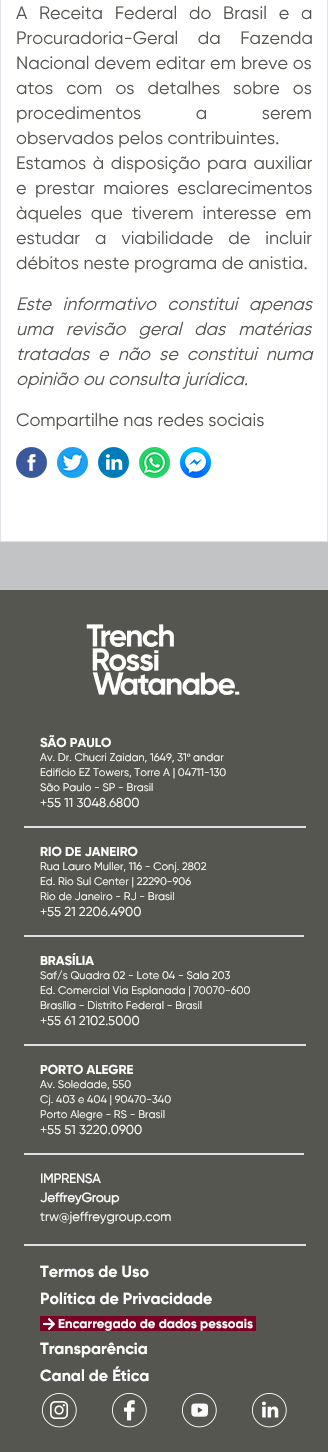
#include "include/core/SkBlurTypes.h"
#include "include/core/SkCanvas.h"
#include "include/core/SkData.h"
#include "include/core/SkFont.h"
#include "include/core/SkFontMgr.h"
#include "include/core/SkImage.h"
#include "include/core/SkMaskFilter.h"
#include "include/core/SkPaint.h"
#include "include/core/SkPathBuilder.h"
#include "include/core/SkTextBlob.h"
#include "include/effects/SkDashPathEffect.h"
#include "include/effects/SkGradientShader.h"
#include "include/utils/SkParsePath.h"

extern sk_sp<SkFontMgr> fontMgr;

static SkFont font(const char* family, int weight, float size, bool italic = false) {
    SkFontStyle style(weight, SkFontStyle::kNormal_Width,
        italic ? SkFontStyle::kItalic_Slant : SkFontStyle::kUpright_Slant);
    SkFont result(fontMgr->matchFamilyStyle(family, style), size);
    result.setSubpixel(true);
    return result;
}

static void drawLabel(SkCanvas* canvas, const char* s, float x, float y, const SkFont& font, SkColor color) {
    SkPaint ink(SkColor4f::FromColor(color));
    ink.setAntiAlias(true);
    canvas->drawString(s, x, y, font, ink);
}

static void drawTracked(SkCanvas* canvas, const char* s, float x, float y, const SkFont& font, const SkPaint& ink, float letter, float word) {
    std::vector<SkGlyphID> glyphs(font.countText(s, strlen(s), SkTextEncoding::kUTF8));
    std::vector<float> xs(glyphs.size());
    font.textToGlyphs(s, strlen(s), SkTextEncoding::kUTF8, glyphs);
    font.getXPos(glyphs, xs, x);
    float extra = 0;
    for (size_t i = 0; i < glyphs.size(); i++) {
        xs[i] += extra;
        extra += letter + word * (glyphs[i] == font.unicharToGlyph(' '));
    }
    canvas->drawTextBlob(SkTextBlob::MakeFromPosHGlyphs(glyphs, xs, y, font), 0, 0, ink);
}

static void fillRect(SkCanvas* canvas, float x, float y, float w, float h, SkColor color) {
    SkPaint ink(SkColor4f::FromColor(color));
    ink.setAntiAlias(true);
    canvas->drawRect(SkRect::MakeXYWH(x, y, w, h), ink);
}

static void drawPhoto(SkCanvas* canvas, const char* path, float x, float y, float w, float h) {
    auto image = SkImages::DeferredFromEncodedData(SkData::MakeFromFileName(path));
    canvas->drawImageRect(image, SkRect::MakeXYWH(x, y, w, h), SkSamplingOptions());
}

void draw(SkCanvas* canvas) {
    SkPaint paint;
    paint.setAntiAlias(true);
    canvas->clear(0xFFC1C3C4);
    paint.setColor(0xFFFFFFFF);
    canvas->drawRect(SkRect::MakeXYWH(0.5f, -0.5f, 327, 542), paint);
    paint.setStroke(true);
    paint.setStrokeWidth(1);
    paint.setColor(0xFFDEE2E6);
    canvas->drawRect(SkRect::MakeXYWH(0.5f, -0.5f, 327, 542), paint);
    SkFont font1 = font("Gilroy", 400, 18);
    paint.setStroke(false);
    paint.setColor(0xFF565650);
    drawTracked(canvas, "A Receita Federal do Brasil e a", 16, 19, font1, paint, 0, 7.25f);
    drawTracked(canvas, "Procuradoria-Geral da Fazenda", 16, 44, font1, paint, 0, 15);
    drawTracked(canvas, "Nacional devem editar em breve os", 16, 69, font1, paint, 0, 0.25f);
    drawTracked(canvas, "atos com os detalhes sobre os", 16, 94, font1, paint, 0, 8.5f);
    drawTracked(canvas, "procedimentos a serem", 16, 119, font1, paint, 0, 50);
    drawLabel(canvas, "observados pelos contribuintes.", 16, 144, font1, 0xFF565650);
    drawTracked(canvas, "Estamos à disposição para auxiliar", 16, 169, font1, paint, 0, 2);
    drawTracked(canvas, "e prestar maiores esclarecimentos", 16, 194, font1, paint, 0, 4);
    drawTracked(canvas, "àqueles que tiverem interesse em", 16, 219, font1, paint, 0, 4.5f);
    drawTracked(canvas, "estudar a viabilidade de incluir", 16, 244, font1, paint, 0, 10.5f);
    drawLabel(canvas, "débitos neste programa de anistia.", 16, 269, font1, 0xFF565650);
    SkFont font2 = font("Gilroy", 400, 18, true);
    drawTracked(canvas, "Este informativo constitui apenas", 16, 310, font2, paint, 0, 7);
    drawTracked(canvas, "uma revisão geral das matérias", 16, 335, font2, paint, 0, 8.5f);
    drawTracked(canvas, "tratadas e não se constitui numa", 16, 360, font2, paint, 0, 4.5f);
    drawLabel(canvas, "opinião ou consulta jurídica.", 16, 385, font2, 0xFF565650);
    drawLabel(canvas, "Compartilhe nas redes sociais", 16, 426, font1, 0xFF565650);
    drawPhoto(canvas, "assets/img1.png", 16, 447, 31, 31);
    drawPhoto(canvas, "assets/img2.png", 57, 447, 31, 31);
    drawPhoto(canvas, "assets/img3.png", 98, 447, 31, 31);
    drawPhoto(canvas, "assets/img4.png", 139, 447, 31, 31);
    drawPhoto(canvas, "assets/img5.png", 180, 447, 31, 31);
    fillRect(canvas, 0, 590, 328, 862, 0xFF565650);
    drawPhoto(canvas, "assets/img6.png", 86, 624, 154, 72);
    SkFont font3 = font("Gilroy", 700, 13);
    drawLabel(canvas, "SÃO PAULO", 40, 747, font3, 0xFFFFFFFF);
    SkFont font4 = font("Gilroy", 400, 11);
    drawLabel(canvas, "Av. Dr. Chucri Zaidan, 1649, 31", 40, 761, font4, 0xFFFFFFFF);
    SkFont font5 = font("Liberation Serif", 400, 11);
    drawLabel(canvas, "º", 187, 761, font5, 0xFFFFFFFF);
    drawLabel(canvas, "andar", 193, 761, font4, 0xFFFFFFFF);
    drawLabel(canvas, "Edifício EZ Towers, Torre A | 04711-130", 40, 776, font4, 0xFFFFFFFF);
    drawLabel(canvas, "São Paulo - SP - Brasil", 40, 791, font4, 0xFFFFFFFF);
    SkFont font6 = font("Gilroy", 400, 13);
    drawLabel(canvas, "+55 11 3048.6800", 40, 807, font6, 0xFFFFFFFF);
    fillRect(canvas, 24, 826, 282, 2, 0xFFDEE2E6);
    drawLabel(canvas, "RIO DE JANEIRO", 40, 856, font3, 0xFFFFFFFF);
    drawLabel(canvas, "Rua Lauro Muller, 116 - Conj. 2802", 40, 870, font4, 0xFFFFFFFF);
    drawLabel(canvas, "Ed. Rio Sul Center | 22290-906", 40, 885, font4, 0xFFFFFFFF);
    drawLabel(canvas, "Rio de Janeiro - RJ - Brasil", 40, 900, font4, 0xFFFFFFFF);
    drawLabel(canvas, "+55 21 2206.4900", 40, 916, font6, 0xFFFFFFFF);
    fillRect(canvas, 24, 935, 280, 2, 0xFFDEE2E6);
    drawLabel(canvas, "BRASÍLIA", 40, 965, font3, 0xFFFFFFFF);
    drawLabel(canvas, "Saf/s Quadra 02 - Lote 04 - Sala 203", 40, 979, font4, 0xFFFFFFFF);
    drawLabel(canvas, "Ed. Comercial Via Esplanada | 70070-600", 40, 994, font4, 0xFFFFFFFF);
    drawLabel(canvas, "Brasília - Distrito Federal - Brasil", 40, 1009, font4, 0xFFFFFFFF);
    drawLabel(canvas, "+55 61 2102.5000", 40, 1025, font6, 0xFFFFFFFF);
    fillRect(canvas, 24, 1044, 282, 2, 0xFFDEE2E6);
    drawLabel(canvas, "PORTO ALEGRE", 40, 1074, font3, 0xFFFFFFFF);
    drawLabel(canvas, "Av. Soledade, 550", 40, 1088, font4, 0xFFFFFFFF);
    drawLabel(canvas, "Cj. 403 e 404 | 90470-340", 40, 1103, font4, 0xFFFFFFFF);
    drawLabel(canvas, "Porto Alegre - RS - Brasil", 40, 1118, font4, 0xFFFFFFFF);
    drawLabel(canvas, "+55 51 3220.0900", 40, 1134, font6, 0xFFFFFFFF);
    fillRect(canvas, 24, 1153, 280, 2, 0xFFDEE2E6);
    SkFont font7 = font("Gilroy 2", 700, 13);
    drawLabel(canvas, "IMPRENSA", 40, 1183, font7, 0xFFFFFFFF);
    drawLabel(canvas, "JeffreyGroup", 40, 1202, font7, 0xFFFFFFFF);
    drawLabel(canvas, "trw@jeffreygroup.com", 40, 1221, font6, 0xFFFFFFFF);
    fillRect(canvas, 24, 1244, 282, 2, 0xFFDEE2E6);
    SkFont font8 = font("Gilroy", 700, 16);
    drawLabel(canvas, "Termos de Uso", 40, 1277, font8, 0xFFFFFFFF);
    drawLabel(canvas, "Política de Privacidade", 40, 1304, font8, 0xFFFFFFFF);
    fillRect(canvas, 40, 1316, 216, 15, 0xFF790123);
    drawPhoto(canvas, "assets/img7.png", 43, 1318, 12, 12);
    drawLabel(canvas, "Encarregado de dados pessoais", 58, 1328, font3, 0xFFFFFFFF);
    drawLabel(canvas, "Transparência", 40, 1354, font8, 0xFFFFFFFF);
    drawLabel(canvas, "Canal de Ética", 40, 1381, font8, 0xFFFFFFFF);
    drawPhoto(canvas, "assets/img8.png", 42, 1393, 35, 35);
    drawPhoto(canvas, "assets/img9.png", 112, 1393, 35, 35);
    drawPhoto(canvas, "assets/img10.png", 182, 1393, 35, 35);
    drawPhoto(canvas, "assets/img11.png", 252, 1393, 35, 35);
}
